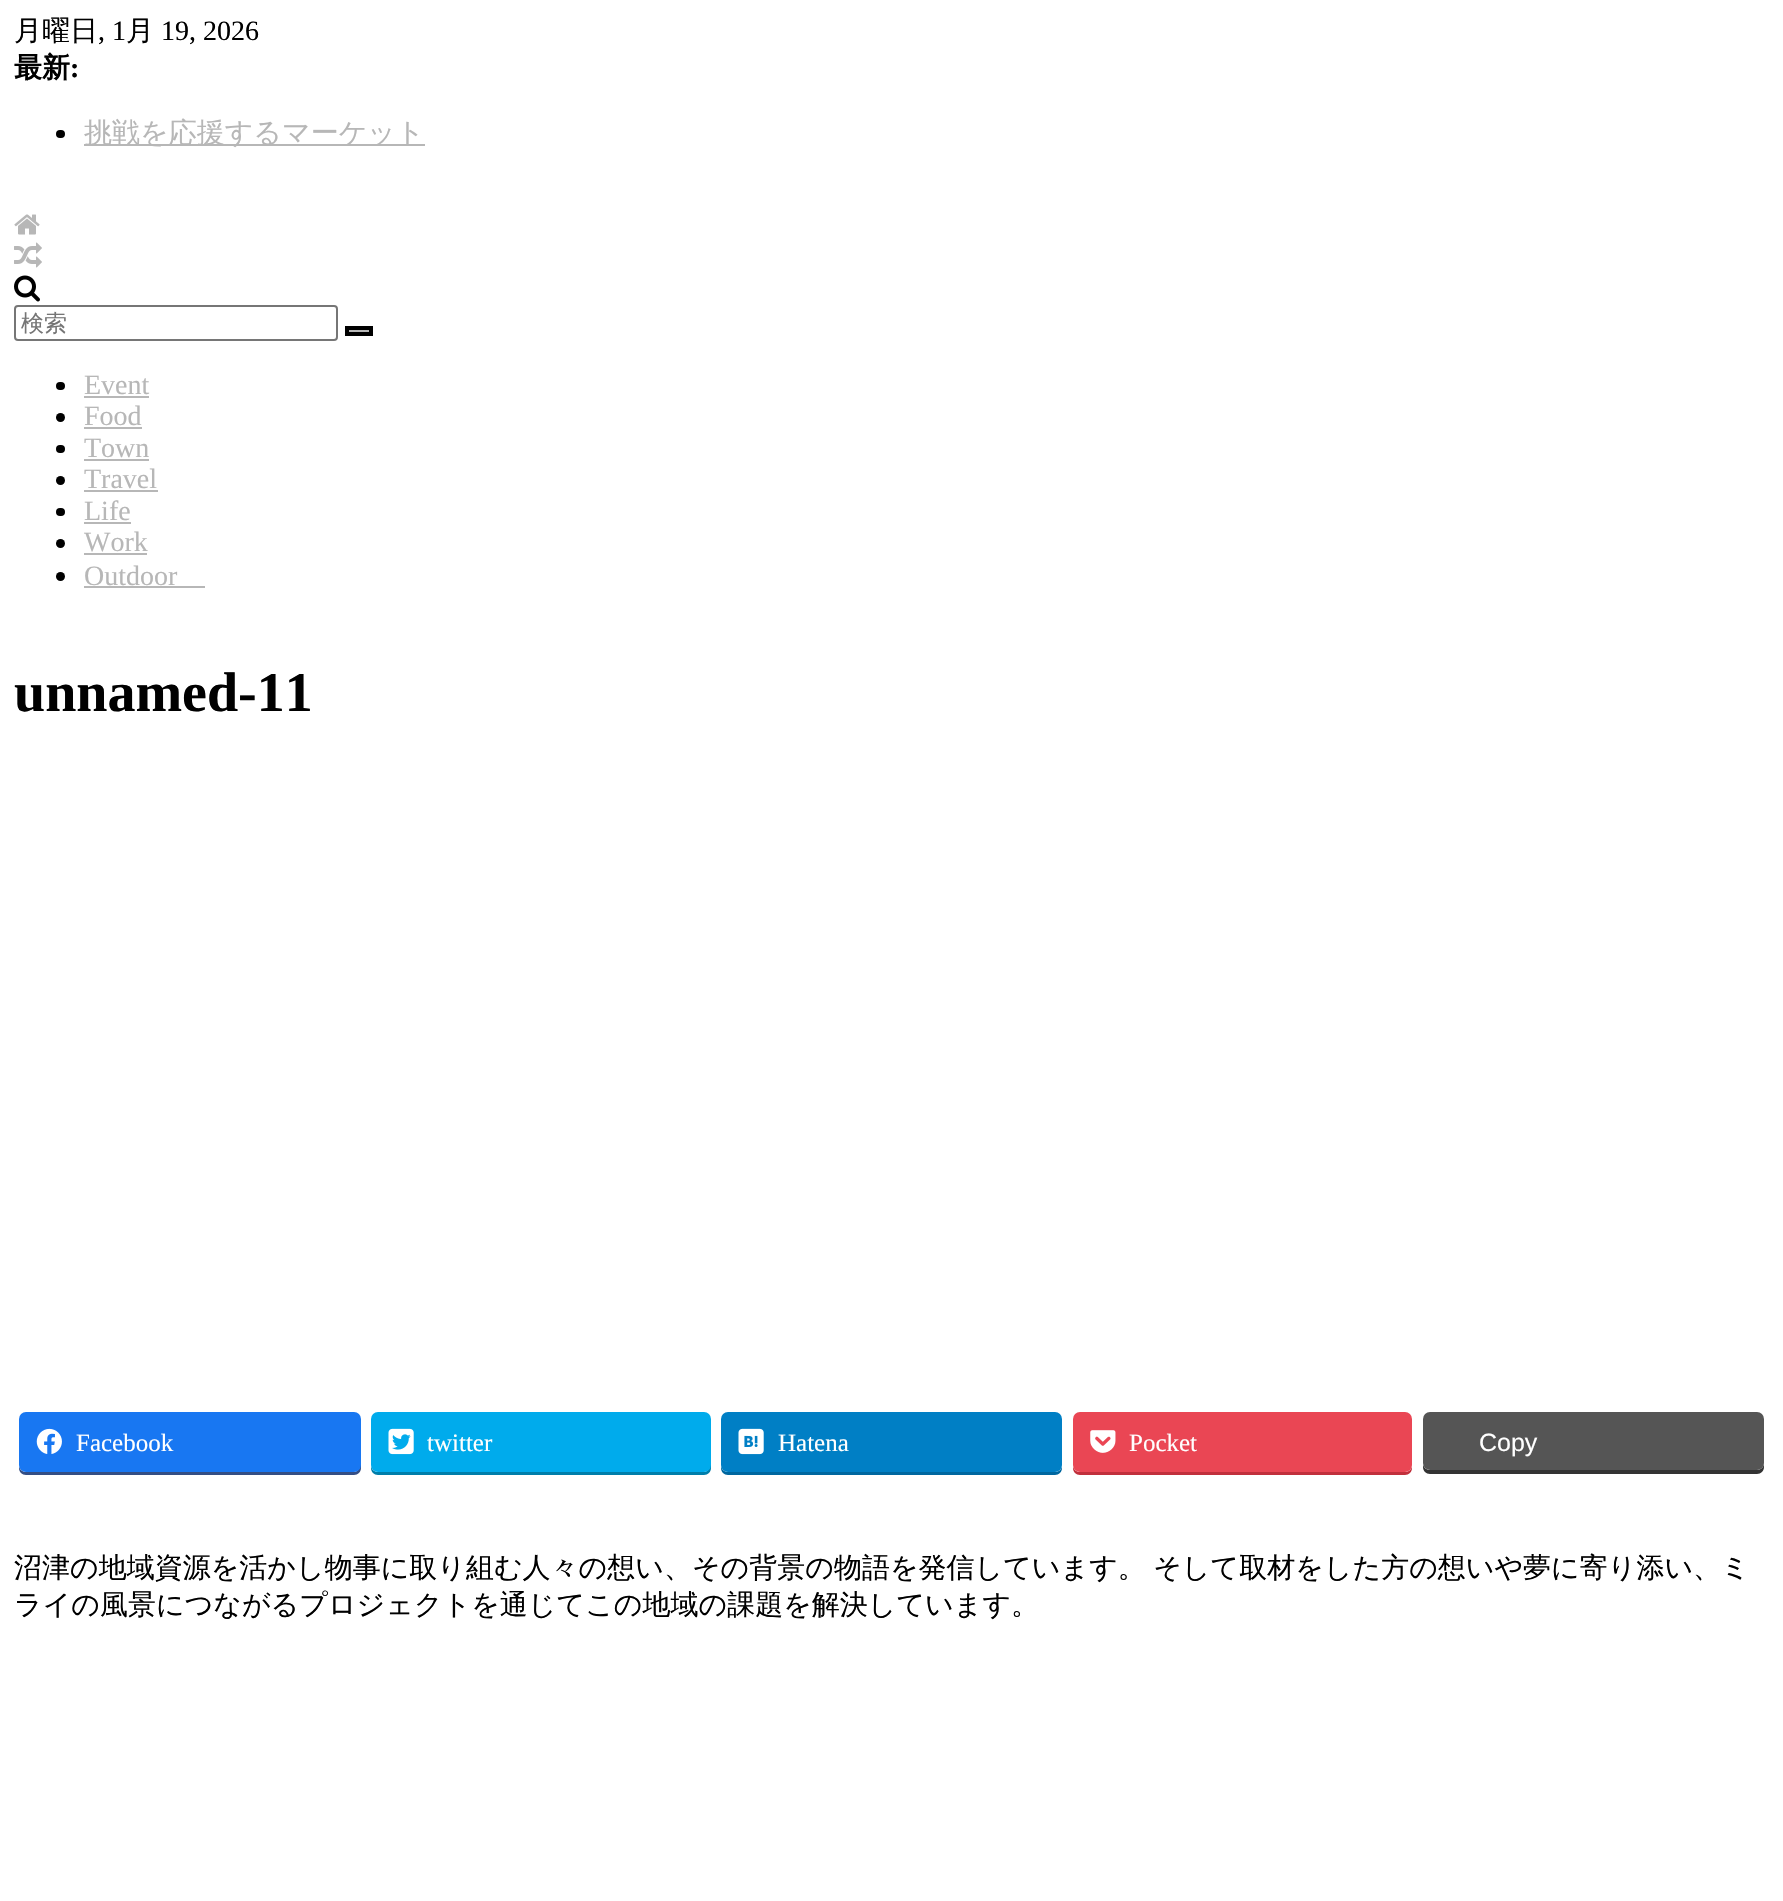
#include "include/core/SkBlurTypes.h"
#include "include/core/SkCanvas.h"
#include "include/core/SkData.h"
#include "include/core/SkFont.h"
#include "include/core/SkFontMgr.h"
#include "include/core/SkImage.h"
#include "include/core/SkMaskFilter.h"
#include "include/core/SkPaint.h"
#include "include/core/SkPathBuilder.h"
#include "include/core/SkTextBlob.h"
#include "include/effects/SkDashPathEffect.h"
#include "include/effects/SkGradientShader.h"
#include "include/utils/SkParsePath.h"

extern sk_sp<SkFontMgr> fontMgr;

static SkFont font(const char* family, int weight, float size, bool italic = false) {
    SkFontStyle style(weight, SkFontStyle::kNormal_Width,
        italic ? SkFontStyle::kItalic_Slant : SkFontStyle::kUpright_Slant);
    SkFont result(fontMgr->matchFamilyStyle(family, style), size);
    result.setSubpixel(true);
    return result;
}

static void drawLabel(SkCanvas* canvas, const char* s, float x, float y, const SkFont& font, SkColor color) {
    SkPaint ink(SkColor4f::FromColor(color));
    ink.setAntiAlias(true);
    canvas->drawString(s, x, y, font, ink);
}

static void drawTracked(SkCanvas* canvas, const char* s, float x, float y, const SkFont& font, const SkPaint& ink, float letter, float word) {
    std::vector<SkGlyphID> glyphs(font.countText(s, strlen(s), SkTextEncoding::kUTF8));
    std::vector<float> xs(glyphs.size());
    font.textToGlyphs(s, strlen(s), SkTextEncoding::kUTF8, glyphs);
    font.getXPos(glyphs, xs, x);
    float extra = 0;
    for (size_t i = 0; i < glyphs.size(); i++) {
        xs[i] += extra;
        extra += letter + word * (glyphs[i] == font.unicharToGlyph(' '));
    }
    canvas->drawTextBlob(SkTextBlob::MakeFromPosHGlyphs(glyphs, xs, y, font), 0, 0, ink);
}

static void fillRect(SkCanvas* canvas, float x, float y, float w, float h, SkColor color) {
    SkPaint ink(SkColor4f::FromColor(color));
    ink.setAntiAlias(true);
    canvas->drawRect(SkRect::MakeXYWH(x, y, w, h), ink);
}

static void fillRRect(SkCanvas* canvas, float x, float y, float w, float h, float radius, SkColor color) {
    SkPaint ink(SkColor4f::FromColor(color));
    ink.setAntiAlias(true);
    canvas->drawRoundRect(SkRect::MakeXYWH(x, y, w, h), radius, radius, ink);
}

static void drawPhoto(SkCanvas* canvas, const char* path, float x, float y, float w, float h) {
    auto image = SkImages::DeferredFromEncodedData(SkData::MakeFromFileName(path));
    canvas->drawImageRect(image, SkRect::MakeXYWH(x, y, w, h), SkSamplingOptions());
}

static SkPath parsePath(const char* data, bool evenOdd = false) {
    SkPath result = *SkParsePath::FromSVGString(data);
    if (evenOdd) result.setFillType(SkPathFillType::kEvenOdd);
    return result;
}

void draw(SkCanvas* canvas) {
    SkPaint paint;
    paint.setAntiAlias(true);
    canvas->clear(0xFFFFFFFF);
    SkFont font1 = font("WenQuanYi Zen Hei", 500, 28);
    drawLabel(canvas, "月曜日", 14, 40, font1, 0xFF000000);
    SkFont font2 = font("Liberation Serif", 400, 28);
    drawLabel(canvas, ", 1", 98, 40, font2, 0xFF000000);
    drawLabel(canvas, "月", 126, 40, font1, 0xFF000000);
    drawLabel(canvas, "19, 2026", 161, 40, font2, 0xFF000000);
    SkFont font3 = font("WenQuanYi Zen Hei", 700, 28);
    drawLabel(canvas, "最新", 14, 77, font3, 0xFF000000);
    SkFont font4 = font("Liberation Serif", 700, 28);
    drawLabel(canvas, ":", 70, 77, font4, 0xFF000000);
    fillRRect(canvas, 56, 130, 9, 8, 4, 0xFF000000);
    fillRect(canvas, 84, 144, 341, 2, 0xFFB7B7B7);
    drawLabel(canvas, "挑戦を応援するマーケット", 84, 142, font1, 0xFFB7B7B7);
    drawPhoto(canvas, "assets/img1.png", 14, 214, 26, 21);
    drawPhoto(canvas, "assets/img2.png", 14, 242, 28, 26);
    drawPhoto(canvas, "assets/img3.png", 14, 275, 26, 27);
    paint.setStroke(true);
    paint.setStrokeWidth(2);
    paint.setColor(0xFF767676);
    canvas->drawRoundRect(SkRect::MakeXYWH(15, 306, 322, 34), 3, 3, paint);
    SkFont font5 = font("WenQuanYi Zen Hei", 500, 23);
    drawLabel(canvas, "検索", 21, 331, font5, 0xFF757575);
    paint.setStroke(false);
    paint.setColor(0xFFB7B7B7);
    canvas->drawRect(SkRect::MakeXYWH(347, 328, 24, 6), paint);
    paint.setStroke(true);
    paint.setStrokeWidth(4);
    paint.setColor(0xFF000000);
    canvas->drawRect(SkRect::MakeXYWH(347, 328, 24, 6), paint);
    fillRRect(canvas, 56, 382, 9, 8, 4, 0xFF000000);
    drawLabel(canvas, "Event", 84, 394, font2, 0xFFB7B7B7);
    fillRect(canvas, 84, 396, 65, 2, 0xFFB7B7B7);
    paint.setStroke(false);
    canvas->drawCircle(60.5f, 417.5f, 4.5f, paint);
    drawLabel(canvas, "Food", 84, 425, font2, 0xFFB7B7B7);
    fillRect(canvas, 84, 427, 58, 2, 0xFFB7B7B7);
    fillRRect(canvas, 56, 445, 9, 8, 4, 0xFF000000);
    drawLabel(canvas, "Town", 84, 457, font2, 0xFFB7B7B7);
    fillRect(canvas, 84, 459, 65, 2, 0xFFB7B7B7);
    canvas->drawCircle(60.5f, 480.5f, 4.5f, paint);
    drawLabel(canvas, "Travel", 84, 488, font2, 0xFFB7B7B7);
    fillRect(canvas, 84, 490, 74, 2, 0xFFB7B7B7);
    fillRRect(canvas, 56, 508, 9, 8, 4, 0xFF000000);
    drawLabel(canvas, "Life", 84, 520, font2, 0xFFB7B7B7);
    fillRect(canvas, 84, 522, 47, 2, 0xFFB7B7B7);
    canvas->drawCircle(60.5f, 543.5f, 4.5f, paint);
    drawLabel(canvas, "Work", 84, 551, font2, 0xFFB7B7B7);
    fillRect(canvas, 84, 553, 63, 2, 0xFFB7B7B7);
    canvas->drawCircle(60.5f, 576.5f, 4.5f, paint);
    drawLabel(canvas, "Outdoor", 84, 585, font2, 0xFFB7B7B7);
    fillRect(canvas, 84, 586, 121, 2, 0xFFB7B7B7);
    SkFont font6 = font("Liberation Serif", 700, 56);
    drawLabel(canvas, "unnamed-11", 14, 711, font6, 0xFF000000);
    paint.setColor(0xFF344E84);
    canvas->drawPath(parsePath("M19 1421V1468C19 1472 22 1475 26 1475H354C358 1475 361 1472 361 1468V1423L360 1420V1465C360 1469 357 1472 354 1472H26C22 1472 19 1469 19 1465Z"), paint);
    fillRRect(canvas, 19, 1412, 342, 60, 7, 0xFF1877F2);
    drawPhoto(canvas, "assets/img4.png", 36, 1428, 26, 26);
    SkFont font7 = font("Liberation Serif", 400, 25);
    drawLabel(canvas, "Facebook", 76, 1451, font7, 0xFFFFFFFF);
    paint.setColor(0xFF007EAA);
    canvas->drawPath(parsePath("M371 1465V1468C371 1472 374 1475 378 1475H704C708 1475 711 1472 711 1468V1423L710 1420V1465C710 1469 707 1472 704 1472H378C374 1472 371 1469 371 1465Z"), paint);
    fillRRect(canvas, 371, 1412, 340, 60, 7, 0xFF00ABEC);
    drawPhoto(canvas, "assets/img5.png", 388, 1428, 26, 27);
    drawLabel(canvas, "twitter", 427, 1451, font7, 0xFFFFFFFF);
    paint.setColor(0xFF00679F);
    canvas->drawPath(parsePath("M721 1465V1468C721 1472 724 1475 728 1475H1055C1059 1475 1062 1472 1062 1468V1467C1061 1470 1058 1472 1055 1472H728C724 1472 721 1469 721 1465Z"), paint);
    fillRRect(canvas, 721, 1412, 341, 60, 7, 0xFF007FC5);
    drawPhoto(canvas, "assets/img6.png", 738, 1428, 26, 27);
    drawLabel(canvas, "Hatena", 778, 1451, font7, 0xFFFFFFFF);
    paint.setColor(0xFFC1303C);
    canvas->drawPath(parsePath("M1073 1467V1468C1073 1472 1076 1475 1080 1475H1405C1409 1475 1412 1472 1412 1468V1467C1411 1470 1408 1472 1405 1472H1080C1077 1472 1074 1470 1073 1467Z"), paint);
    fillRRect(canvas, 1073, 1412, 339, 60, 7, 0xFFEA4654);
    drawPhoto(canvas, "assets/img7.png", 1090, 1430, 26, 23);
    drawLabel(canvas, "Pocket", 1129, 1451, font7, 0xFFFFFFFF);
    paint.setColor(0xFF333333);
    canvas->drawPath(parsePath("M1423 1465V1467C1423 1471 1426 1474 1430 1474H1757C1761 1474 1764 1471 1764 1467V1463C1764 1467 1761 1470 1757 1470H1430C1427 1470 1424 1468 1423 1465Z"), paint);
    fillRRect(canvas, 1423, 1412, 341, 58, 7, 0xFF555555);
    SkFont font8 = font("Liberation Sans", 400, 25);
    drawLabel(canvas, "Copy", 1479, 1451, font8, 0xFFFFFFFF);
    paint.setColor(0xFF000000);
    drawTracked(canvas, "沼津の地域資源を活かし物事に取り組む人々の想い、その背景の物語を発信しています。 そして取材をした方の想いや夢に寄り添い、ミ", 14, 1577, font1, paint, 0, -1);
    drawLabel(canvas, "ライの風景につながるプロジェクトを通じてこの地域の課題を解決しています。", 14, 1614, font1, 0xFF000000);
}
